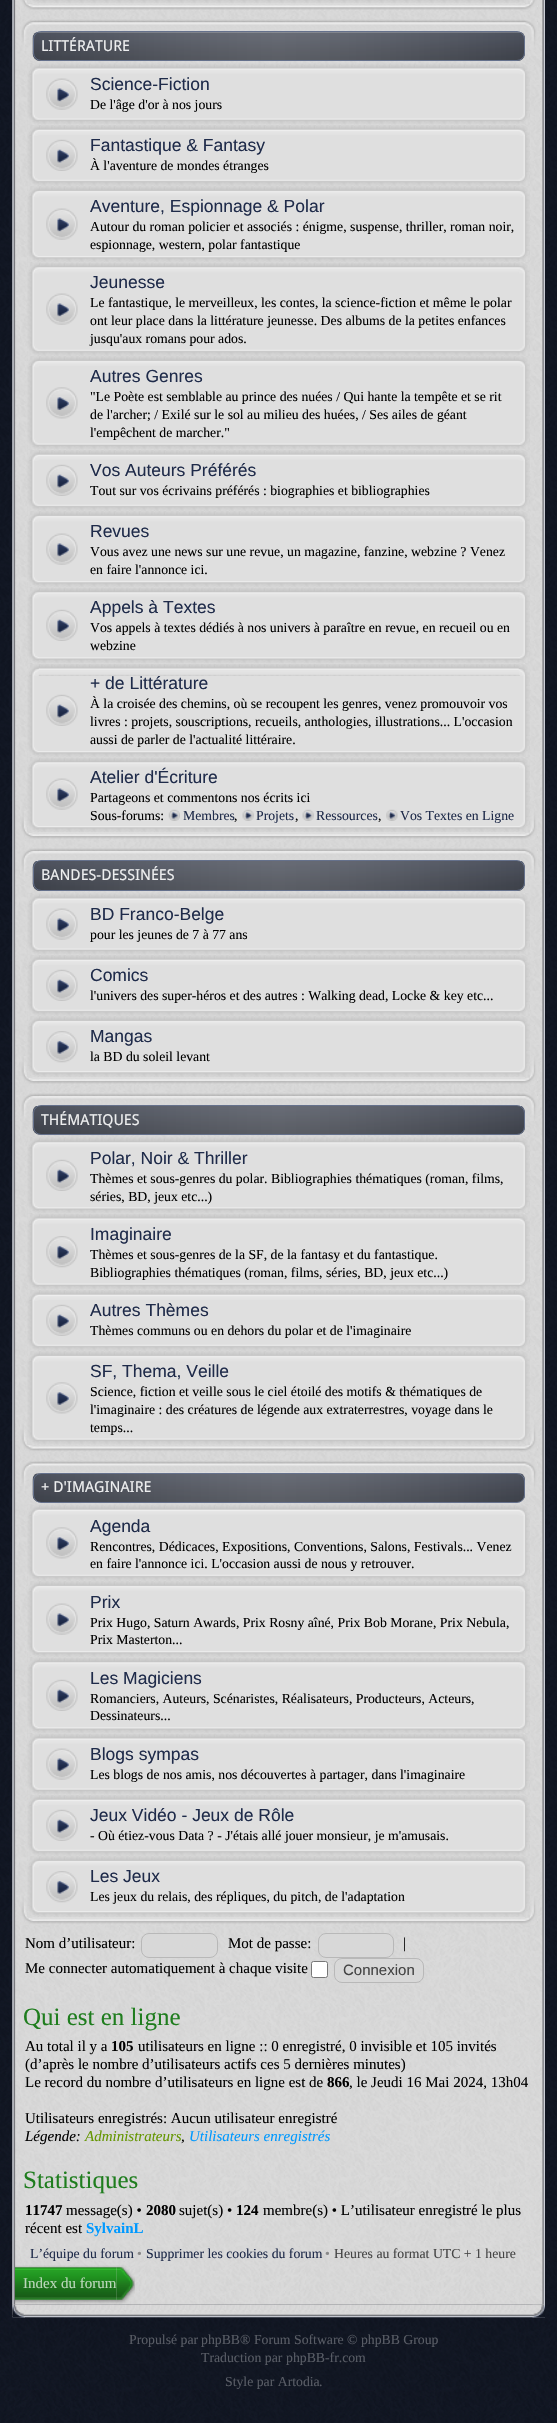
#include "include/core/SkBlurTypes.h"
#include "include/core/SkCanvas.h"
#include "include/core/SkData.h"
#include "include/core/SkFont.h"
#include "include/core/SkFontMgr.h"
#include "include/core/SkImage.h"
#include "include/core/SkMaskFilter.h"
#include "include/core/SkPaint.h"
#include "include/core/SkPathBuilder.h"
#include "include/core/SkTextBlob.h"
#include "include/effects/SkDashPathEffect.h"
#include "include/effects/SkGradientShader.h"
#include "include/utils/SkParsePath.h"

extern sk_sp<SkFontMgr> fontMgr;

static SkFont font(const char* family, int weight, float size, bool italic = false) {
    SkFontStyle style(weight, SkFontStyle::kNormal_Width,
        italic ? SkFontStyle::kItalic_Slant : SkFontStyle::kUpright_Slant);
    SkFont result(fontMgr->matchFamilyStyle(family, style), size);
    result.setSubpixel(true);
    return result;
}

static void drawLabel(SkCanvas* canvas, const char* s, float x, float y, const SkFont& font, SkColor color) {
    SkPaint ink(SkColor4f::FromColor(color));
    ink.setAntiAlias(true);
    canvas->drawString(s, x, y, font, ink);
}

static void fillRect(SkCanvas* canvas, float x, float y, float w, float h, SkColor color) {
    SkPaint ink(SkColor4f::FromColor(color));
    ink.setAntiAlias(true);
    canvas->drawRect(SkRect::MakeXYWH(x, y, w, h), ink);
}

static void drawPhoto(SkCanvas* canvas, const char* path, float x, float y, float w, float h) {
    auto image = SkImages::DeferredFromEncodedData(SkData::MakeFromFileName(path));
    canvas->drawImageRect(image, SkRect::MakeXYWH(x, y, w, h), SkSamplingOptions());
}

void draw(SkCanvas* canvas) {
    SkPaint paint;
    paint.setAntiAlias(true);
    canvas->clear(0xFFFFFFFF);
    drawPhoto(canvas, "assets/img1.png", 0, 0, 557, 2423);
    drawPhoto(canvas, "assets/img2.png", 12, 0, 533, 2305);
    drawPhoto(canvas, "assets/img3.png", 22, 0, 516, 11);
    fillRect(canvas, 28, 3, 502, 1, 0xFFDFDFDF);
    drawPhoto(canvas, "assets/img4.png", 27, 0, 503, 4);
    drawPhoto(canvas, "assets/img5.png", 21, 19, 517, 821);
    drawPhoto(canvas, "assets/img6.png", 32, 31, 493, 30);
    paint.setStroke(true);
    paint.setStrokeWidth(1);
    paint.setColor(0xFF65718C);
    canvas->drawRoundRect(SkRect::MakeXYWH(33.5f, 31.5f, 491, 29), 7.5f, 7.5f, paint);
    SkFont font1 = font("Droid Sans", 400, 15);
    drawLabel(canvas, "LITTÉRATURE", 41, 51, font1, 0xFFEDEEEF);
    fillRect(canvas, 28, 73, 502, 52, 0xFFDFDFDF);
    drawPhoto(canvas, "assets/img7.png", 27, 63, 503, 62);
    drawPhoto(canvas, "assets/img8.png", 46, 78, 32, 32);
    SkFont font2 = font("Liberation Sans", 400, 17.5f);
    drawLabel(canvas, "Science-Fiction", 90, 90, font2, 0xFF1F2B4A);
    SkFont font3 = font("Liberation Serif", 400, 13.75f);
    drawLabel(canvas, "De l'âge d'or à nos jours", 90, 109, font3, 0xFF000000);
    fillRect(canvas, 35, 134, 488, 46, 0xFFDFDFDF);
    drawPhoto(canvas, "assets/img9.png", 27, 125, 503, 61);
    drawPhoto(canvas, "assets/img10.png", 46, 139, 32, 32);
    drawLabel(canvas, "Fantastique & Fantasy", 90, 151, font2, 0xFF1F2B4A);
    drawLabel(canvas, "À l'aventure de mondes étranges", 90, 170, font3, 0xFF000000);
    fillRect(canvas, 28, 195, 502, 68, 0xFFDFDFDF);
    drawPhoto(canvas, "assets/img11.png", 27, 186, 503, 77);
    drawPhoto(canvas, "assets/img8.png", 46, 208, 32, 32);
    drawLabel(canvas, "Aventure, Espionnage & Polar", 90, 212, font2, 0xFF1F2B4A);
    drawLabel(canvas, "Autour du roman policier et associés : énigme, suspense, thriller, roman noir,", 90, 231, font3, 0xFF000000);
    drawLabel(canvas, "espionnage, western, polar fantastique", 90, 249, font3, 0xFF000000);
    fillRect(canvas, 35, 272, 488, 78, 0xFFDFDFDF);
    drawPhoto(canvas, "assets/img12.png", 27, 262, 503, 94);
    drawPhoto(canvas, "assets/img8.png", 46, 293, 32, 32);
    drawLabel(canvas, "Jeunesse", 90, 288, font2, 0xFF1F2B4A);
    drawLabel(canvas, "Le fantastique, le merveilleux, les contes, la science-fiction et même le polar", 90, 307, font3, 0xFF000000);
    drawLabel(canvas, "ont leur place dans la littérature jeunesse. Des albums de la petites enfances", 90, 325, font3, 0xFF000000);
    drawLabel(canvas, "jusqu'aux romans pour ados.", 90, 343, font3, 0xFF000000);
    fillRect(canvas, 28, 365, 502, 85, 0xFFDFDFDF);
    drawPhoto(canvas, "assets/img13.png", 27, 356, 503, 94);
    drawPhoto(canvas, "assets/img14.png", 46, 387, 32, 32);
    drawLabel(canvas, "Autres Genres", 90, 382, font2, 0xFF1F2B4A);
    drawLabel(canvas, "\"Le Poète est semblable au prince des nuées / Qui hante la tempête et se rit", 90, 401, font3, 0xFF000000);
    drawLabel(canvas, "de l'archer; / Exilé sur le sol au milieu des huées, / Ses ailes de géant", 90, 419, font3, 0xFF000000);
    drawLabel(canvas, "l'empêchent de marcher.\"", 90, 437, font3, 0xFF000000);
    fillRect(canvas, 35, 459, 488, 46, 0xFFDFDFDF);
    drawPhoto(canvas, "assets/img15.png", 27, 450, 503, 61);
    drawPhoto(canvas, "assets/img10.png", 46, 464, 32, 32);
    drawLabel(canvas, "Vos Auteurs Préférés", 90, 476, font2, 0xFF1F2B4A);
    drawLabel(canvas, "Tout sur vos écrivains préférés : biographies et bibliographies", 90, 495, font3, 0xFF000000);
    fillRect(canvas, 28, 520, 502, 68, 0xFFDFDFDF);
    drawPhoto(canvas, "assets/img16.png", 27, 511, 503, 77);
    drawPhoto(canvas, "assets/img8.png", 46, 533, 32, 32);
    drawLabel(canvas, "Revues", 90, 537, font2, 0xFF1F2B4A);
    drawLabel(canvas, "Vous avez une news sur une revue, un magazine, fanzine, webzine ? Venez", 90, 556, font3, 0xFF000000);
    drawLabel(canvas, "en faire l'annonce ici.", 90, 574, font3, 0xFF000000);
    fillRect(canvas, 28, 597, 502, 67, 0xFFDFDFDF);
    drawPhoto(canvas, "assets/img17.png", 27, 587, 503, 77);
    drawPhoto(canvas, "assets/img10.png", 46, 609, 32, 32);
    drawLabel(canvas, "Appels à Textes", 90, 613, font2, 0xFF1F2B4A);
    drawLabel(canvas, "Vos appels à textes dédiés à nos univers à paraître en revue, en recueil ou en", 90, 632, font3, 0xFF000000);
    drawLabel(canvas, "webzine", 90, 650, font3, 0xFF000000);
    fillRect(canvas, 28, 673, 502, 85, 0xFFDFDFDF);
    drawPhoto(canvas, "assets/img18.png", 27, 663, 503, 95);
    drawPhoto(canvas, "assets/img10.png", 46, 694, 32, 32);
    drawLabel(canvas, "+ de Littérature", 90, 689, font2, 0xFF1F2B4A);
    drawLabel(canvas, "À la croisée des chemins, où se recoupent les genres, venez promouvoir vos", 90, 708, font3, 0xFF000000);
    drawLabel(canvas, "livres : projets, souscriptions, recueils, anthologies, illustrations... L'occasion", 90, 726, font3, 0xFF000000);
    drawLabel(canvas, "aussi de parler de l'actualité littéraire.", 90, 744, font3, 0xFF000000);
    fillRect(canvas, 28, 767, 502, 66, 0xFFDFDFDF);
    drawPhoto(canvas, "assets/img19.png", 27, 757, 503, 76);
    drawPhoto(canvas, "assets/img8.png", 46, 778, 32, 32);
    drawLabel(canvas, "Atelier d'Écriture", 90, 783, font2, 0xFF1F2B4A);
    drawLabel(canvas, "Partageons et commentons nos écrits ici", 90, 802, font3, 0xFF000000);
    drawLabel(canvas, "Sous-forums:", 90, 820, font3, 0xFF000000);
    drawPhoto(canvas, "assets/img20.png", 168, 809, 12, 12);
    drawLabel(canvas, "Membres", 183, 820, font3, 0xFF1F2B4A);
    drawLabel(canvas, ",", 234, 820, font3, 0xFF000000);
    drawPhoto(canvas, "assets/img21.png", 242, 809, 12, 12);
    drawLabel(canvas, "Projets", 256, 820, font3, 0xFF1F2B4A);
    drawLabel(canvas, ",", 295, 820, font3, 0xFF000000);
    drawPhoto(canvas, "assets/img21.png", 302, 809, 12, 12);
    drawLabel(canvas, "Ressources", 316, 820, font3, 0xFF1F2B4A);
    drawLabel(canvas, ",", 378, 820, font3, 0xFF000000);
    drawPhoto(canvas, "assets/img22.png", 386, 809, 12, 12);
    drawLabel(canvas, "Vos Textes en Ligne", 400, 820, font3, 0xFF1F2B4A);
    drawPhoto(canvas, "assets/img23.png", 20, 847, 518, 238);
    drawPhoto(canvas, "assets/img24.png", 32, 860, 493, 31);
    canvas->drawRoundRect(SkRect::MakeXYWH(33.5f, 860.5f, 491, 30), 7.5f, 7.5f, paint);
    drawLabel(canvas, "BANDES-DESSINÉES", 41, 880, font1, 0xFFEDEEEF);
    fillRect(canvas, 28, 903, 502, 52, 0xFFDFDFDF);
    drawPhoto(canvas, "assets/img25.png", 27, 893, 503, 62);
    drawPhoto(canvas, "assets/img8.png", 46, 908, 32, 32);
    drawLabel(canvas, "BD Franco-Belge", 90, 920, font2, 0xFF1F2B4A);
    drawLabel(canvas, "pour les jeunes de 7 à 77 ans", 90, 939, font3, 0xFF000000);
    fillRect(canvas, 35, 964, 488, 46, 0xFFDFDFDF);
    drawPhoto(canvas, "assets/img26.png", 27, 955, 503, 61);
    drawPhoto(canvas, "assets/img10.png", 46, 969, 32, 32);
    drawLabel(canvas, "Comics", 90, 981, font2, 0xFF1F2B4A);
    drawLabel(canvas, "l'univers des super-héros et des autres : Walking dead, Locke & key etc...", 90, 1000, font3, 0xFF000000);
    fillRect(canvas, 28, 1025, 502, 53, 0xFFDFDFDF);
    drawPhoto(canvas, "assets/img27.png", 27, 1016, 503, 62);
    drawPhoto(canvas, "assets/img28.png", 46, 1031, 32, 32);
    drawLabel(canvas, "Mangas", 90, 1042, font2, 0xFF1F2B4A);
    drawLabel(canvas, "la BD du soleil levant", 90, 1061, font3, 0xFF000000);
    drawPhoto(canvas, "assets/img29.png", 20, 1092, 518, 360);
    drawPhoto(canvas, "assets/img30.png", 32, 1105, 493, 30);
    canvas->drawRoundRect(SkRect::MakeXYWH(33.5f, 1105.5f, 491, 29), 7.5f, 7.5f, paint);
    drawLabel(canvas, "THÉMATIQUES", 41, 1125, font1, 0xFFEDEEEF);
    fillRect(canvas, 28, 1147, 502, 67, 0xFFDFDFDF);
    drawPhoto(canvas, "assets/img31.png", 27, 1137, 503, 77);
    drawPhoto(canvas, "assets/img10.png", 46, 1159, 32, 32);
    drawLabel(canvas, "Polar, Noir & Thriller", 90, 1164, font2, 0xFF1F2B4A);
    drawLabel(canvas, "Thèmes et sous-genres du polar. Bibliographies thématiques (roman, films,", 90, 1183, font3, 0xFF000000);
    drawLabel(canvas, "séries, BD, jeux etc...)", 90, 1201, font3, 0xFF000000);
    fillRect(canvas, 28, 1223, 502, 67, 0xFFDFDFDF);
    drawPhoto(canvas, "assets/img32.png", 27, 1213, 503, 77);
    drawPhoto(canvas, "assets/img33.png", 46, 1236, 32, 32);
    drawLabel(canvas, "Imaginaire", 90, 1240, font2, 0xFF1F2B4A);
    drawLabel(canvas, "Thèmes et sous-genres de la SF, de la fantasy et du fantastique.", 90, 1259, font3, 0xFF000000);
    drawLabel(canvas, "Bibliographies thématiques (roman, films, séries, BD, jeux etc...)", 90, 1277, font3, 0xFF000000);
    fillRect(canvas, 35, 1299, 488, 46, 0xFFDFDFDF);
    drawPhoto(canvas, "assets/img34.png", 27, 1290, 503, 61);
    drawPhoto(canvas, "assets/img10.png", 46, 1304, 32, 32);
    drawLabel(canvas, "Autres Thèmes", 90, 1316, font2, 0xFF1F2B4A);
    drawLabel(canvas, "Thèmes communs ou en dehors du polar et de l'imaginaire", 90, 1335, font3, 0xFF000000);
    fillRect(canvas, 28, 1360, 502, 85, 0xFFDFDFDF);
    drawPhoto(canvas, "assets/img35.png", 27, 1351, 503, 94);
    drawPhoto(canvas, "assets/img14.png", 46, 1382, 32, 32);
    drawLabel(canvas, "SF, Thema, Veille", 90, 1377, font2, 0xFF1F2B4A);
    drawLabel(canvas, "Science, fiction et veille sous le ciel étoilé des motifs & thématiques de", 90, 1396, font3, 0xFF000000);
    drawLabel(canvas, "l'imaginaire : des créatures de légende aux extraterrestres, voyage dans le", 90, 1414, font3, 0xFF000000);
    drawLabel(canvas, "temps...", 90, 1432, font3, 0xFF000000);
    drawPhoto(canvas, "assets/img36.png", 20, 1460, 518, 465);
    drawPhoto(canvas, "assets/img37.png", 32, 1472, 493, 31);
    canvas->drawRoundRect(SkRect::MakeXYWH(33.5f, 1473.5f, 491, 29), 7.5f, 7.5f, paint);
    drawLabel(canvas, "+ D'IMAGINAIRE", 41, 1492, font1, 0xFFEDEEEF);
    fillRect(canvas, 35, 1514, 488, 61, 0xFFDFDFDF);
    drawPhoto(canvas, "assets/img38.png", 27, 1504, 503, 77);
    drawPhoto(canvas, "assets/img14.png", 46, 1527, 32, 32);
    drawLabel(canvas, "Agenda", 90, 1532, font2, 0xFF1F2B4A);
    drawLabel(canvas, "Rencontres, Dédicaces, Expositions, Conventions, Salons, Festivals... Venez", 90, 1551, font3, 0xFF000000);
    drawLabel(canvas, "en faire l'annonce ici. L'occasion aussi de nous y retrouver.", 90, 1568, font3, 0xFF000000);
    fillRect(canvas, 28, 1590, 502, 68, 0xFFDFDFDF);
    drawPhoto(canvas, "assets/img39.png", 27, 1581, 503, 77);
    drawPhoto(canvas, "assets/img8.png", 46, 1603, 32, 32);
    drawLabel(canvas, "Prix", 90, 1608, font2, 0xFF1F2B4A);
    drawLabel(canvas, "Prix Hugo, Saturn Awards, Prix Rosny aîné, Prix Bob Morane, Prix Nebula,", 90, 1627, font3, 0xFF000000);
    drawLabel(canvas, "Prix Masterton...", 90, 1644, font3, 0xFF000000);
    fillRect(canvas, 28, 1667, 502, 67, 0xFFDFDFDF);
    drawPhoto(canvas, "assets/img40.png", 27, 1657, 503, 77);
    drawPhoto(canvas, "assets/img10.png", 46, 1679, 32, 32);
    drawLabel(canvas, "Les Magiciens", 90, 1684, font2, 0xFF1F2B4A);
    drawLabel(canvas, "Romanciers, Auteurs, Scénaristes, Réalisateurs, Producteurs, Acteurs,", 90, 1703, font3, 0xFF000000);
    drawLabel(canvas, "Dessinateurs...", 90, 1720, font3, 0xFF000000);
    fillRect(canvas, 28, 1743, 502, 52, 0xFFDFDFDF);
    drawPhoto(canvas, "assets/img41.png", 27, 1733, 503, 62);
    drawPhoto(canvas, "assets/img8.png", 46, 1748, 32, 32);
    drawLabel(canvas, "Blogs sympas", 90, 1760, font2, 0xFF1F2B4A);
    drawLabel(canvas, "Les blogs de nos amis, nos découvertes à partager, dans l'imaginaire", 90, 1779, font3, 0xFF000000);
    fillRect(canvas, 35, 1804, 488, 46, 0xFFDFDFDF);
    drawPhoto(canvas, "assets/img42.png", 27, 1795, 503, 61);
    drawPhoto(canvas, "assets/img10.png", 46, 1809, 32, 32);
    drawLabel(canvas, "Jeux Vidéo - Jeux de Rôle", 90, 1821, font2, 0xFF1F2B4A);
    drawLabel(canvas, "- Où étiez-vous Data ? - J'étais allé jouer monsieur, je m'amusais.", 90, 1840, font3, 0xFF000000);
    fillRect(canvas, 28, 1865, 502, 53, 0xFFDFDFDF);
    drawPhoto(canvas, "assets/img43.png", 27, 1856, 503, 62);
    drawPhoto(canvas, "assets/img33.png", 46, 1871, 32, 32);
    drawLabel(canvas, "Les Jeux", 90, 1882, font2, 0xFF1F2B4A);
    drawLabel(canvas, "Les jeux du relais, des répliques, du pitch, de l'adaptation", 90, 1901, font3, 0xFF000000);
    SkFont font4 = font("Liberation Serif", 400, 15);
    drawLabel(canvas, "Nom d’utilisateur:", 25, 1948, font4, 0xFF000000);
    paint.setStroke(false);
    paint.setColor(0xFFD8D8D8);
    canvas->drawRoundRect(SkRect::MakeXYWH(141.5f, 1933.5f, 76, 24), 7.5f, 7.5f, paint);
    paint.setStroke(true);
    paint.setColor(0xFFB8B8B8);
    canvas->drawRoundRect(SkRect::MakeXYWH(141.5f, 1933.5f, 76, 24), 7.5f, 7.5f, paint);
    drawLabel(canvas, "Mot de passe:", 228, 1948, font4, 0xFF000000);
    paint.setStroke(false);
    paint.setColor(0xFFD8D8D8);
    canvas->drawRoundRect(SkRect::MakeXYWH(318.5f, 1933.5f, 75, 24), 7.5f, 7.5f, paint);
    paint.setStroke(true);
    paint.setColor(0xFFB8B8B8);
    canvas->drawRoundRect(SkRect::MakeXYWH(318.5f, 1933.5f, 75, 24), 7.5f, 7.5f, paint);
    drawLabel(canvas, "|", 403, 1948, font4, 0xFF000000);
    drawLabel(canvas, "Me connecter automatiquement à chaque visite", 25, 1973, font4, 0xFF000000);
    paint.setStroke(false);
    paint.setColor(0xFFFFFFFF);
    canvas->drawRoundRect(SkRect::MakeXYWH(311.5f, 1961.5f, 16, 16), 2, 2, paint);
    paint.setStroke(true);
    paint.setColor(0xFF767676);
    canvas->drawRoundRect(SkRect::MakeXYWH(311.5f, 1961.5f, 16, 16), 2, 2, paint);
    paint.setStroke(false);
    paint.setColor(0xFFD8D8D8);
    canvas->drawRoundRect(SkRect::MakeXYWH(334.5f, 1958.5f, 89, 24), 7.5f, 7.5f, paint);
    paint.setStroke(true);
    paint.setColor(0xFFB8B8B8);
    canvas->drawRoundRect(SkRect::MakeXYWH(334.5f, 1958.5f, 89, 24), 7.5f, 7.5f, paint);
    SkFont font5 = font("Liberation Sans", 400, 15);
    drawLabel(canvas, "Connexion", 343, 1975, font5, 0xFF444444);
    SkFont font6 = font("Liberation Serif", 400, 25);
    drawLabel(canvas, "Qui est en ligne", 23, 2025, font6, 0xFF1F7D1E);
    drawLabel(canvas, "Au total il y a", 25, 2051, font4, 0xFF000000);
    SkFont font7 = font("Liberation Serif", 700, 15);
    drawLabel(canvas, "105", 111, 2051, font7, 0xFF000000);
    drawLabel(canvas, "utilisateurs en ligne :: 0 enregistré, 0 invisible et 105 invités", 138, 2051, font4, 0xFF000000);
    drawLabel(canvas, "(d’après le nombre d’utilisateurs actifs ces 5 dernières minutes)", 25, 2069, font4, 0xFF000000);
    drawLabel(canvas, "Le record du nombre d’utilisateurs en ligne est de", 25, 2087, font4, 0xFF000000);
    drawLabel(canvas, "866", 327, 2087, font7, 0xFF000000);
    drawLabel(canvas, ", le Jeudi 16 Mai 2024, 13h04", 349, 2087, font4, 0xFF000000);
    drawLabel(canvas, "Utilisateurs enregistrés: Aucun utilisateur enregistré", 25, 2123, font4, 0xFF000000);
    SkFont font8 = font("Liberation Serif", 400, 15, true);
    drawLabel(canvas, "Légende:", 25, 2141, font8, 0xFF000000);
    drawLabel(canvas, "Administrateurs", 85, 2141, font8, 0xFF649600);
    drawLabel(canvas, ",", 181, 2141, font8, 0xFF000000);
    drawLabel(canvas, "Utilisateurs enregistrés", 189, 2141, font8, 0xFF0099FF);
    drawLabel(canvas, "Statistiques", 23, 2188, font6, 0xFF1F7D1E);
    drawLabel(canvas, "11747", 25, 2215, font7, 0xFF000000);
    drawLabel(canvas, "message(s) •", 66, 2215, font4, 0xFF000000);
    drawLabel(canvas, "2080", 146, 2215, font7, 0xFF000000);
    drawLabel(canvas, "sujet(s) •", 179, 2215, font4, 0xFF000000);
    drawLabel(canvas, "124", 236, 2215, font7, 0xFF000000);
    drawLabel(canvas, "membre(s) • L’utilisateur enregistré le plus", 263, 2215, font4, 0xFF000000);
    drawLabel(canvas, "récent est", 25, 2233, font4, 0xFF000000);
    drawLabel(canvas, "SylvainL", 86, 2233, font7, 0xFF0099FF);
    drawLabel(canvas, "L’équipe du forum", 30, 2258, font3, 0xFF1F2B4A);
    drawLabel(canvas, "•", 137, 2258, font3, 0xFF888888);
    drawLabel(canvas, "Supprimer les cookies du forum", 146, 2258, font3, 0xFF1F2B4A);
    drawLabel(canvas, "•", 325, 2258, font3, 0xFF888888);
    drawLabel(canvas, "Heures au format UTC + 1 heure", 334, 2258, font3, 0xFF444444);
    drawPhoto(canvas, "assets/img44.png", 116, 2265, 19, 39);
    drawPhoto(canvas, "assets/img45.png", 15, 2265, 102, 39);
    drawLabel(canvas, "Index du forum", 23, 2288, font4, 0xFFBBD7BB);
    drawPhoto(canvas, "assets/img46.png", 12, 2304, 533, 14);
    drawLabel(canvas, "Propulsé par", 129, 2344, font3, 0xFF585C65);
    drawLabel(canvas, "phpBB", 201, 2344, font3, 0xFF585C65);
    drawLabel(canvas, "® Forum Software © phpBB Group", 240, 2344, font3, 0xFF585C65);
    drawLabel(canvas, "Traduction par", 201, 2362, font3, 0xFF585C65);
    drawLabel(canvas, "phpBB-fr.com", 286, 2362, font3, 0xFF585C65);
    drawLabel(canvas, "Style par Artodia", 225, 2386, font3, 0xFF585C65);
    drawLabel(canvas, ".", 319, 2386, font3, 0xFF585C65);
}
